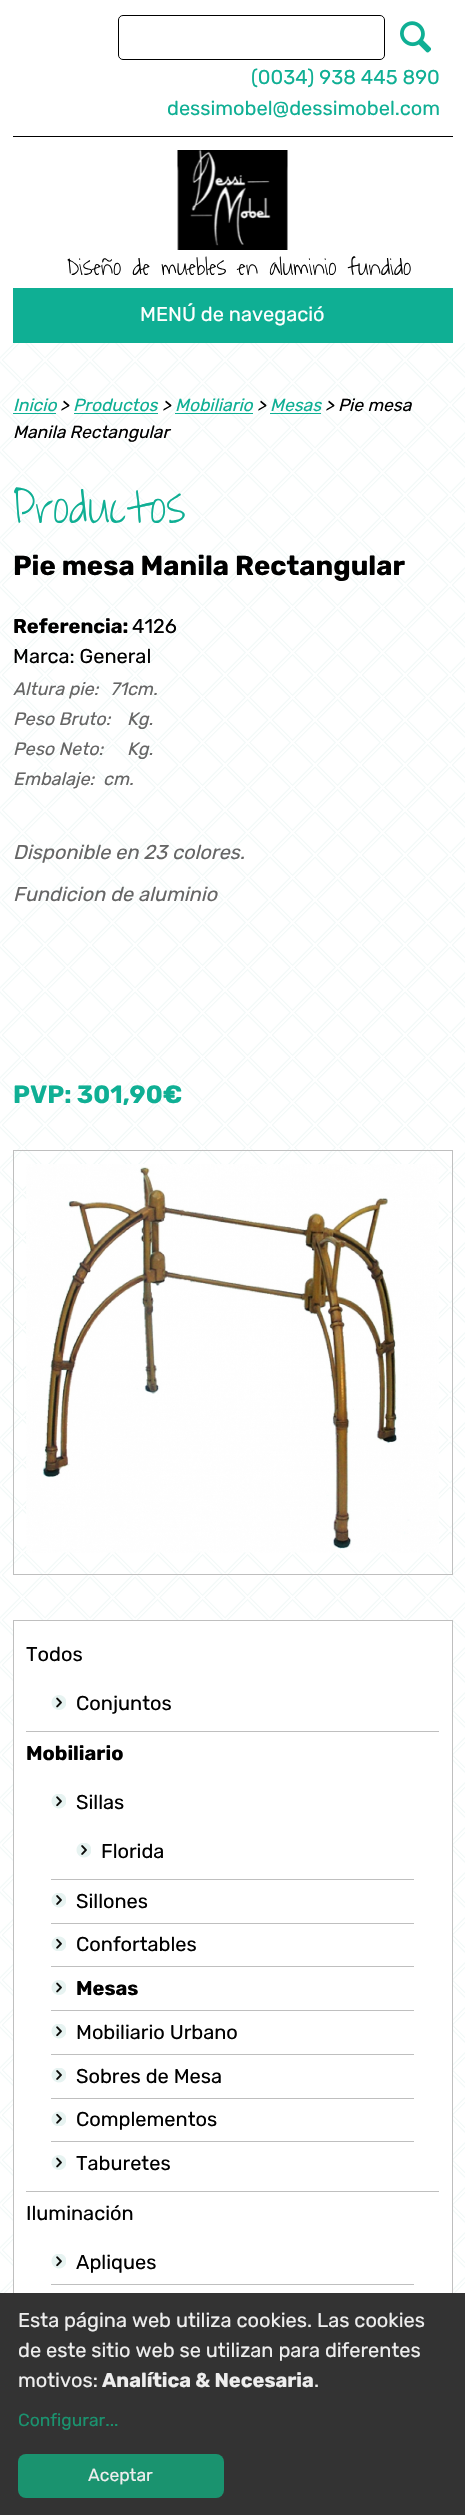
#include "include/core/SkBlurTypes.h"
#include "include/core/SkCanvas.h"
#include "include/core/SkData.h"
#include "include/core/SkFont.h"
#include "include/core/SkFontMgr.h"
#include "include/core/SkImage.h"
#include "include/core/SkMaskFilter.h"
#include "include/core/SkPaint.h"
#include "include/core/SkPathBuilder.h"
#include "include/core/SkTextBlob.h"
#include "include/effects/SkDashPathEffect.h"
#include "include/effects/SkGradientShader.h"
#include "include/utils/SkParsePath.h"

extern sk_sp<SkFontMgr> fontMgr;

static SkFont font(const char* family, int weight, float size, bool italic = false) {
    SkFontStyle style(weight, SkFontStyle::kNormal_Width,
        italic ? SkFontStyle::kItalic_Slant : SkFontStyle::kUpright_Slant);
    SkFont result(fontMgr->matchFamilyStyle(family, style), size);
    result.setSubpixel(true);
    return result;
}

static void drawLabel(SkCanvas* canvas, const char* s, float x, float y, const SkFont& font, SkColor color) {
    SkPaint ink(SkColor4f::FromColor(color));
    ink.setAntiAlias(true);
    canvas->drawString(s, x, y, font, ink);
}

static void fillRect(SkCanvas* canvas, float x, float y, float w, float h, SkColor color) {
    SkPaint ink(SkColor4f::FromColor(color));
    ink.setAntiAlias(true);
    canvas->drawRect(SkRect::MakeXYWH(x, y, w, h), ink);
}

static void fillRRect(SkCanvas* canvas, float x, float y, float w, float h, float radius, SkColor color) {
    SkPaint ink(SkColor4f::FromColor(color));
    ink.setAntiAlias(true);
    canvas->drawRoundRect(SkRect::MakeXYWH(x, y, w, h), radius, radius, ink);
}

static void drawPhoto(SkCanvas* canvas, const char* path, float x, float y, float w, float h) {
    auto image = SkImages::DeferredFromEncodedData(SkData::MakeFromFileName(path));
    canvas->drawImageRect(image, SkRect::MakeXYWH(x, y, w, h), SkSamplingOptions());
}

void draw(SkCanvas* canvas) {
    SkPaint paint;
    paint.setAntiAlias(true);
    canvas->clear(0xFFFFFFFF);
    drawPhoto(canvas, "assets/img1.png", 0, 343, 465, 1950);
    fillRect(canvas, 13, 136, 440, 1, 0xFF000000);
    paint.setStroke(true);
    paint.setStrokeWidth(1);
    paint.setColor(0xFF000000);
    canvas->drawRoundRect(SkRect::MakeXYWH(118.5f, 15.5f, 266, 44), 4.5f, 4.5f, paint);
    drawPhoto(canvas, "assets/img2.png", 400, 21, 31, 32);
    SkFont font1 = font("Rubik", 400, 20);
    drawLabel(canvas, "(0034) 938 445 890", 251, 84, font1, 0xFF0FAF94);
    drawLabel(canvas, "dessimobel@dessimobel.com", 167, 115, font1, 0xFF0FAF94);
    drawPhoto(canvas, "assets/img3.png", 177, 150, 111, 100);
    SkFont font2 = font("Waiting for the Sunrise", 300, 25);
    drawLabel(canvas, "Diseño de muebles en aluminio fundido", 67, 275, font2, 0xFF000000);
    fillRect(canvas, 13, 288, 440, 55, 0xFF0FAF94);
    drawLabel(canvas, "MENÚ de navegació", 140, 321, font1, 0xFFFFFFFF);
    SkFont font3 = font("Rubik", 400, 17.5f, true);
    drawLabel(canvas, "Inicio", 13, 411, font3, 0xFF0FAF94);
    fillRect(canvas, 13, 413, 43, 1, 0xFF0FAF94);
    drawLabel(canvas, ">", 60, 411, font3, 0xFF000000);
    drawLabel(canvas, "Productos", 73, 411, font3, 0xFF0FAF94);
    fillRect(canvas, 74, 413, 84, 1, 0xFF0FAF94);
    drawLabel(canvas, ">", 162, 411, font3, 0xFF000000);
    drawLabel(canvas, "Mobiliario", 175, 411, font3, 0xFF0FAF94);
    fillRect(canvas, 175, 413, 78, 1, 0xFF0FAF94);
    drawLabel(canvas, ">", 257, 411, font3, 0xFF000000);
    drawLabel(canvas, "Mesas", 270, 411, font3, 0xFF0FAF94);
    fillRect(canvas, 270, 413, 51, 1, 0xFF0FAF94);
    drawLabel(canvas, "> Pie mesa", 325, 411, font3, 0xFF000000);
    drawLabel(canvas, "Manila Rectangular", 13, 438, font3, 0xFF000000);
    SkFont font4 = font("Waiting for the Sunrise", 300, 50);
    drawLabel(canvas, "Productos", 13, 523, font4, 0xFF0FAF94);
    SkFont font5 = font("Rubik", 700, 27.5f);
    drawLabel(canvas, "Pie mesa Manila Rectangular", 13, 575, font5, 0xFF000000);
    SkFont font6 = font("Rubik", 700, 20);
    drawLabel(canvas, "Referencia:", 13, 633, font6, 0xFF000000);
    drawLabel(canvas, "4126", 132, 633, font1, 0xFF000000);
    drawLabel(canvas, "Marca: General", 13, 663, font1, 0xFF000000);
    SkFont font7 = font("Rubik", 400, 18, true);
    drawLabel(canvas, "Altura pie:", 13, 695, font7, 0xFF666666);
    drawLabel(canvas, "71cm.", 110, 695, font7, 0xFF666666);
    drawLabel(canvas, "Peso Bruto:", 13, 725, font7, 0xFF666666);
    drawLabel(canvas, "Kg.", 127, 725, font7, 0xFF666666);
    drawLabel(canvas, "Peso Neto:", 13, 755, font7, 0xFF666666);
    drawLabel(canvas, "Kg.", 127, 755, font7, 0xFF666666);
    drawLabel(canvas, "Embalaje:  cm.", 13, 785, font7, 0xFF666666);
    SkFont font8 = font("Rubik", 400, 20, true);
    drawLabel(canvas, "Disponible en 23 colores.", 13, 859, font8, 0xFF666666);
    drawLabel(canvas, "Fundicion de aluminio", 13, 901, font8, 0xFF666666);
    SkFont font9 = font("Rubik", 700, 25);
    drawLabel(canvas, "PVP: 301,90€", 13, 1103, font9, 0xFF0FAF94);
    paint.setColor(0xFFBFBFBF);
    canvas->drawRect(SkRect::MakeXYWH(13.5f, 1150.5f, 439, 424), paint);
    drawPhoto(canvas, "assets/img4.png", 26, 1164, 413, 389);
    fillRect(canvas, 14, 1621, 438, 672, 0xFFFFFFFF);
    canvas->drawRect(SkRect::MakeXYWH(13.5f, 1620.5f, 439, 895), paint);
    fillRect(canvas, 26, 1731, 413, 1, 0xFFBFBFBF);
    drawLabel(canvas, "Todos", 26, 1661, font1, 0xFF000000);
    drawPhoto(canvas, "assets/img5.png", 51, 1695, 15, 15);
    drawLabel(canvas, "Conjuntos", 76, 1710, font1, 0xFF000000);
    fillRect(canvas, 26, 2191, 413, 1, 0xFFBFBFBF);
    drawLabel(canvas, "Mobiliario", 26, 1760, font6, 0xFF000000);
    fillRect(canvas, 51, 1879, 363, 1, 0xFFBFBFBF);
    drawPhoto(canvas, "assets/img6.png", 51, 1794, 15, 15);
    drawLabel(canvas, "Sillas", 76, 1809, font1, 0xFF000000);
    drawPhoto(canvas, "assets/img7.png", 76, 1843, 15, 15);
    drawLabel(canvas, "Florida", 101, 1858, font1, 0xFF000000);
    fillRect(canvas, 51, 1923, 363, 1, 0xFFBFBFBF);
    drawPhoto(canvas, "assets/img7.png", 51, 1893, 15, 15);
    drawLabel(canvas, "Sillones", 76, 1908, font1, 0xFF000000);
    fillRect(canvas, 51, 1966, 363, 1, 0xFFBFBFBF);
    drawPhoto(canvas, "assets/img8.png", 51, 1936, 15, 15);
    drawLabel(canvas, "Confortables", 76, 1951, font1, 0xFF000000);
    fillRect(canvas, 51, 2010, 363, 1, 0xFFBFBFBF);
    drawPhoto(canvas, "assets/img5.png", 51, 1980, 15, 15);
    drawLabel(canvas, "Mesas", 76, 1995, font6, 0xFF000000);
    fillRect(canvas, 51, 2054, 363, 1, 0xFFBFBFBF);
    drawPhoto(canvas, "assets/img6.png", 51, 2024, 15, 15);
    drawLabel(canvas, "Mobiliario Urbano", 76, 2039, font1, 0xFF000000);
    fillRect(canvas, 51, 2098, 363, 1, 0xFFBFBFBF);
    drawPhoto(canvas, "assets/img7.png", 51, 2068, 15, 15);
    drawLabel(canvas, "Sobres de Mesa", 76, 2083, font1, 0xFF000000);
    fillRect(canvas, 51, 2141, 363, 1, 0xFFBFBFBF);
    drawPhoto(canvas, "assets/img8.png", 51, 2111, 15, 15);
    drawLabel(canvas, "Complementos", 76, 2126, font1, 0xFF000000);
    drawPhoto(canvas, "assets/img5.png", 51, 2155, 15, 15);
    drawLabel(canvas, "Taburetes", 76, 2170, font1, 0xFF000000);
    drawLabel(canvas, "Iluminación", 26, 2220, font1, 0xFF000000);
    fillRect(canvas, 51, 2284, 363, 1, 0xFFBFBFBF);
    drawPhoto(canvas, "assets/img6.png", 51, 2254, 15, 15);
    drawLabel(canvas, "Apliques", 76, 2269, font1, 0xFF000000);
    fillRect(canvas, 0, 2293, 465, 222, 0xFF333333);
    drawLabel(canvas, "Esta página web utiliza cookies. Las cookies", 18, 2327, font1, 0xFFEEEEEE);
    drawLabel(canvas, "de este sitio web se utilizan para diferentes", 18, 2357, font1, 0xFFEEEEEE);
    drawLabel(canvas, "motivos:", 18, 2387, font1, 0xFFEEEEEE);
    drawLabel(canvas, "Analítica & Necesaria", 102, 2387, font6, 0xFFEEEEEE);
    drawLabel(canvas, ".", 314, 2387, font1, 0xFFEEEEEE);
    SkFont font10 = font("Rubik", 400, 17.5f);
    drawLabel(canvas, "Configurar...", 18, 2426, font10, 0xFF1A936F);
    fillRRect(canvas, 18, 2454, 206, 44, 8, 0xFF1A936F);
    drawLabel(canvas, "Aceptar", 88, 2481, font10, 0xFFEEEEEE);
}
